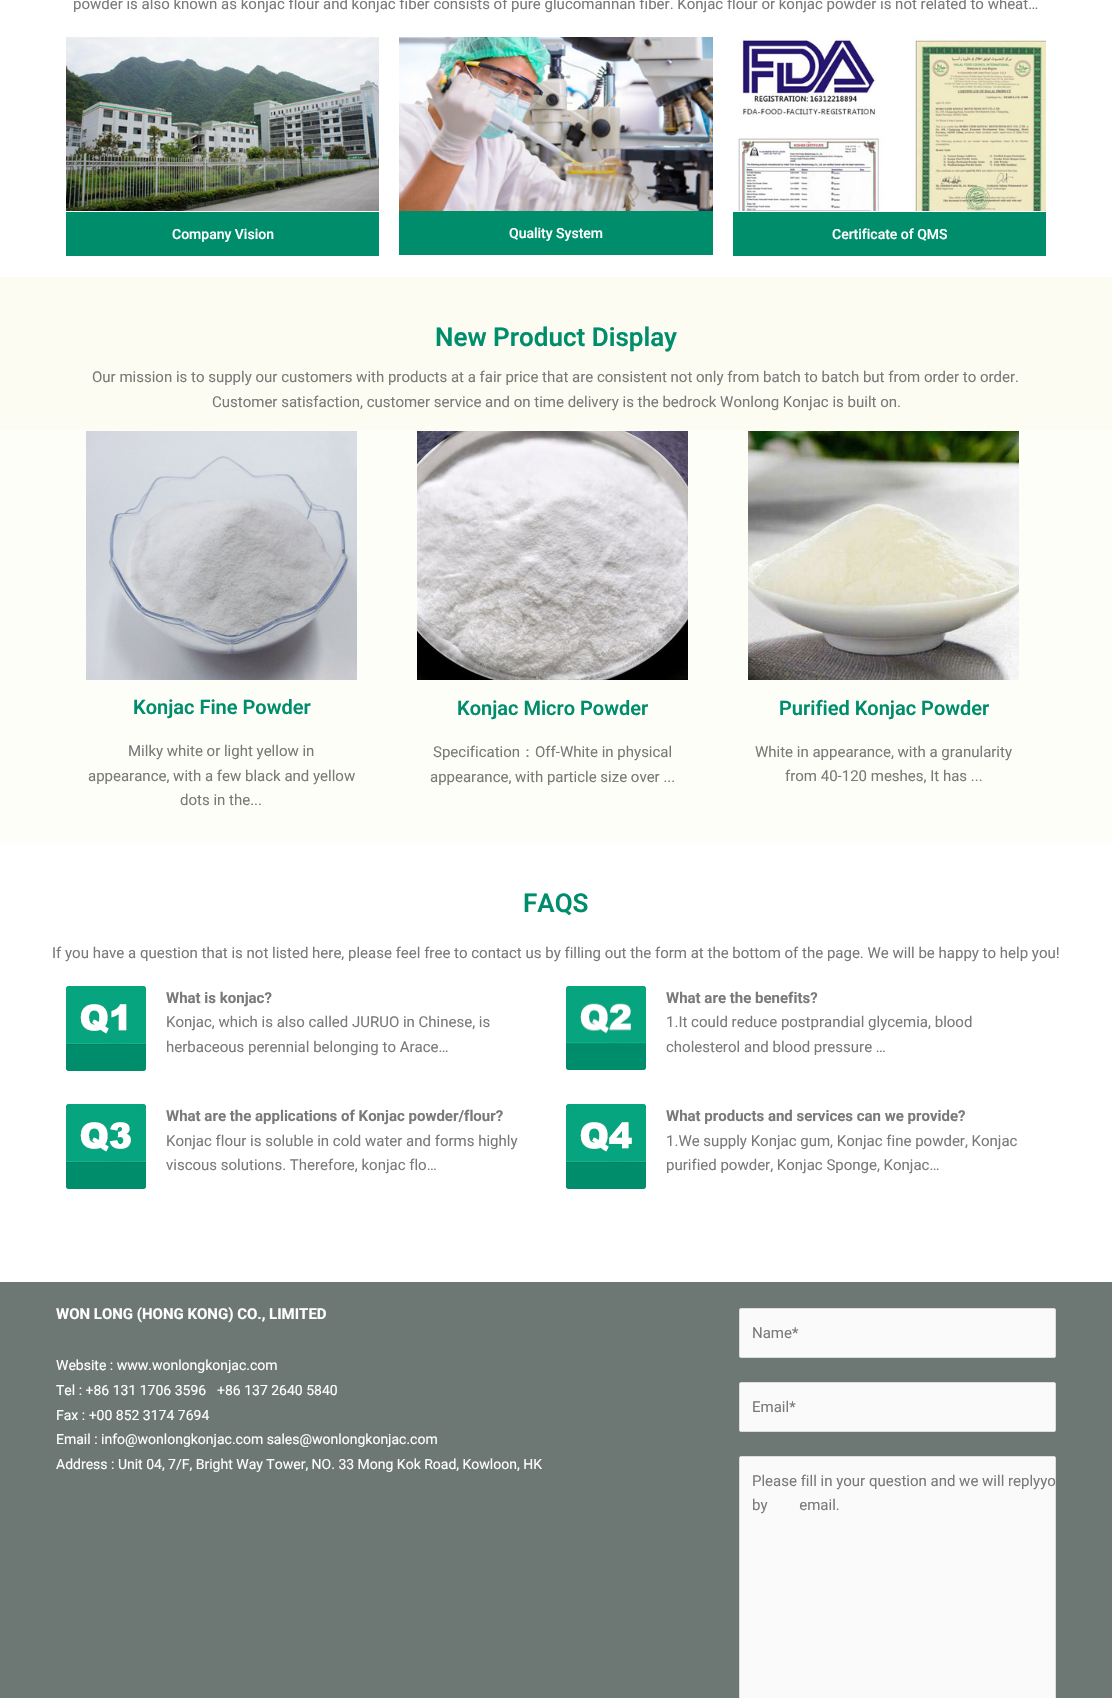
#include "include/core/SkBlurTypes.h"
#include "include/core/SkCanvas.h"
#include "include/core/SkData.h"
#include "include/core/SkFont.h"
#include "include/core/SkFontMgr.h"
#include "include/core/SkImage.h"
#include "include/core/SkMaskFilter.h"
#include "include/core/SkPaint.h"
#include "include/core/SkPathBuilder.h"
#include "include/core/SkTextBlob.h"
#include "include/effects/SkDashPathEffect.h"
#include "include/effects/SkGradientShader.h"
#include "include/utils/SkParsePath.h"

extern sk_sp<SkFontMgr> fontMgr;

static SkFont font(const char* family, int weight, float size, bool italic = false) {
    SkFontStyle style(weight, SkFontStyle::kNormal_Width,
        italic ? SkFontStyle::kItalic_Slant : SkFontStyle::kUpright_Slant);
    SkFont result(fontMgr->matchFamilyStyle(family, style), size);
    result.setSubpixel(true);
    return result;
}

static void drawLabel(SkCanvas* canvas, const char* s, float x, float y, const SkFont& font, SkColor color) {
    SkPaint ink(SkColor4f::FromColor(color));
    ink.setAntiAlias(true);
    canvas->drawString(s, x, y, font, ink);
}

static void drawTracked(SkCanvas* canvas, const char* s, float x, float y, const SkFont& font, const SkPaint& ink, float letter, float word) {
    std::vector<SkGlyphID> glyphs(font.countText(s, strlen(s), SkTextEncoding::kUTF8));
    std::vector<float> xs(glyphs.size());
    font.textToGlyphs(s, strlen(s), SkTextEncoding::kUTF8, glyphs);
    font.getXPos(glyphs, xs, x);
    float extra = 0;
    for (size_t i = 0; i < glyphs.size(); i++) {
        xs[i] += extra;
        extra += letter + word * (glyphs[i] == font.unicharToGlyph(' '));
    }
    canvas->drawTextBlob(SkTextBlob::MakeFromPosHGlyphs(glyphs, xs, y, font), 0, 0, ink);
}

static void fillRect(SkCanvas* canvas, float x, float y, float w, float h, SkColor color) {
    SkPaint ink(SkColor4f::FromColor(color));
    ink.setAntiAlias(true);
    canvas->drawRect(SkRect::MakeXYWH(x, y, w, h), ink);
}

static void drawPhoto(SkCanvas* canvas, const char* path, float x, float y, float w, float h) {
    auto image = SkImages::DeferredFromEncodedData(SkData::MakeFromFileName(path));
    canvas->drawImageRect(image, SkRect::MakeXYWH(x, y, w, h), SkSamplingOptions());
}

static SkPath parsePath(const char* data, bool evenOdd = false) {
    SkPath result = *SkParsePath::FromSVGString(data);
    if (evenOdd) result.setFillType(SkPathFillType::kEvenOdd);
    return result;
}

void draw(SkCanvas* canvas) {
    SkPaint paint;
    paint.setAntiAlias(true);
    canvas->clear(0xFFFFFFFF);
    SkFont font1 = font("Roboto", 400, 15);
    drawLabel(canvas, "powder is also known as konjac flour and konjac fiber consists of pure glucomannan fiber. Konjac flour or konjac powder is not related to wheat…", 73, 9, font1, 0xFF7A7A7A);
    drawPhoto(canvas, "assets/img1.png", 66, 37, 313, 174);
    fillRect(canvas, 66, 212, 313, 44, 0xFF008D6B);
    SkFont font2 = font("Roboto", 500, 14);
    drawLabel(canvas, "Company Vision", 172, 239, font2, 0xFFFFFFFF);
    drawPhoto(canvas, "assets/img2.png", 399, 37, 314, 174);
    fillRect(canvas, 399, 211, 314, 44, 0xFF008D6B);
    drawLabel(canvas, "Quality System", 509, 238, font2, 0xFFFFFFFF);
    drawPhoto(canvas, "assets/img3.png", 738, 37, 308, 174);
    fillRect(canvas, 733, 212, 313, 44, 0xFF008D6B);
    drawLabel(canvas, "Certificate of QMS", 832, 239, font2, 0xFFFFFFFF);
    paint.setColor(0xFFFCFCF2);
    canvas->drawPath(parsePath("M-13 277V390H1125V277ZM10 288V355H1102V288Z", true), paint);
    fillRect(canvas, 10, 288, 1092, 67, 0xFFFCFCF2);
    SkFont font3 = font("Roboto", 600, 26);
    drawLabel(canvas, "New Product Display", 435, 346, font3, 0xFF008D6B);
    fillRect(canvas, 0, 390, 1112, 40, 0xFFFCFCF2);
    drawLabel(canvas, "Our mission is to supply our customers with products at a fair price that are consistent not only from batch to batch but from order to order.", 92, 382, font1, 0xFF7A7A7A);
    drawLabel(canvas, "Customer satisfaction, customer service and on time delivery is the bedrock Wonlong Konjac is built on.", 212, 407, font1, 0xFF7A7A7A);
    fillRect(canvas, 0, 430, 1112, 413, 0xFFFEFEF9);
    drawPhoto(canvas, "assets/img4.png", 86, 431, 271, 249);
    SkFont font4 = font("Roboto", 600, 20);
    drawLabel(canvas, "Konjac Fine Powder", 133, 714, font4, 0xFF008D6B);
    drawLabel(canvas, "Milky white or light yellow in", 128, 756, font1, 0xFF7A7A7A);
    drawLabel(canvas, "appearance, with a few black and yellow", 88, 781, font1, 0xFF7A7A7A);
    drawLabel(canvas, "dots in the...", 180, 805, font1, 0xFF7A7A7A);
    drawPhoto(canvas, "assets/img5.png", 417, 431, 271, 249);
    drawLabel(canvas, "Konjac Micro Powder", 457, 715, font4, 0xFF008D6B);
    drawLabel(canvas, "Specification", 433, 757, font1, 0xFF7A7A7A);
    SkFont font5 = font("WenQuanYi Zen Hei", 500, 15);
    drawLabel(canvas, "：", 520, 757, font5, 0xFF7A7A7A);
    drawLabel(canvas, "Off-White in physical", 535, 757, font1, 0xFF7A7A7A);
    drawLabel(canvas, "appearance, with particle size over ...", 430, 782, font1, 0xFF7A7A7A);
    drawPhoto(canvas, "assets/img6.png", 748, 431, 271, 249);
    drawLabel(canvas, "Purified Konjac Powder", 779, 715, font4, 0xFF008D6B);
    drawLabel(canvas, "White in appearance, with a granularity", 755, 757, font1, 0xFF7A7A7A);
    drawLabel(canvas, "from 40-120 meshes, It has ...", 785, 781, font1, 0xFF7A7A7A);
    drawLabel(canvas, "FAQS", 523, 912, font3, 0xFF008D6B);
    drawLabel(canvas, "If you have a question that is not listed here, please feel free to contact us by filling out the form at the bottom of the page. We will be happy to help you!", 52, 958, font1, 0xFF7A7A7A);
    drawPhoto(canvas, "assets/img7.png", 66, 986, 80, 85);
    SkFont font6 = font("Roboto", 700, 15);
    drawLabel(canvas, "What is konjac?", 166, 1003, font6, 0xFF7A7A7A);
    drawLabel(canvas, "Konjac, which is also called JURUO in Chinese, is", 166, 1027, font1, 0xFF7A7A7A);
    drawLabel(canvas, "herbaceous perennial belonging to Arace…", 166, 1052, font1, 0xFF7A7A7A);
    drawPhoto(canvas, "assets/img8.png", 566, 986, 80, 84);
    drawLabel(canvas, "What are the benefits?", 666, 1003, font6, 0xFF7A7A7A);
    drawLabel(canvas, "1.It could reduce postprandial glycemia, blood", 666, 1027, font1, 0xFF7A7A7A);
    drawLabel(canvas, "cholesterol and blood pressure …", 666, 1052, font1, 0xFF7A7A7A);
    drawPhoto(canvas, "assets/img9.png", 66, 1104, 80, 85);
    drawLabel(canvas, "What are the applications of Konjac powder/flour?", 166, 1121, font6, 0xFF7A7A7A);
    drawLabel(canvas, "Konjac flour is soluble in cold water and forms highly", 166, 1146, font1, 0xFF7A7A7A);
    drawLabel(canvas, "viscous solutions. Therefore, konjac flo…", 166, 1170, font1, 0xFF7A7A7A);
    drawPhoto(canvas, "assets/img10.png", 566, 1104, 80, 85);
    drawLabel(canvas, "What products and services can we provide?", 666, 1121, font6, 0xFF7A7A7A);
    drawLabel(canvas, "1.We supply Konjac gum, Konjac fine powder, Konjac", 666, 1146, font1, 0xFF7A7A7A);
    drawLabel(canvas, "purified powder, Konjac Sponge, Konjac…", 666, 1170, font1, 0xFF7A7A7A);
    fillRect(canvas, 0, 1282, 1112, 416, 0xFF6D7774);
    drawLabel(canvas, "WON LONG (HONG KONG) CO., LIMITED", 56, 1319, font6, 0xFFFFFFFF);
    SkFont font7 = font("Roboto", 400, 14);
    drawLabel(canvas, "Website : www.wonlongkonjac.com", 56, 1370, font7, 0xFFFFFFFF);
    drawLabel(canvas, "Tel : +86 131 1706 3596", 56, 1395, font7, 0xFFFFFFFF);
    drawLabel(canvas, "+86 137 2640 5840", 217, 1395, font7, 0xFFFFFFFF);
    drawLabel(canvas, "Fax : +00 852 3174 7694", 56, 1420, font7, 0xFFFFFFFF);
    drawLabel(canvas, "Email : info@wonlongkonjac.com sales@wonlongkonjac.com", 56, 1444, font7, 0xFFFFFFFF);
    drawLabel(canvas, "Address : Unit 04, 7/F, Bright Way Tower, NO. 33 Mong Kok Road, Kowloon, HK", 56, 1469, font7, 0xFFFFFFFF);
    paint.setColor(0xFFFAFAFA);
    canvas->drawRoundRect(SkRect::MakeXYWH(739.5f, 1308.5f, 316, 49), 1.5f, 1.5f, paint);
    paint.setStroke(true);
    paint.setStrokeWidth(1);
    paint.setColor(0xFFDDDDDD);
    canvas->drawRoundRect(SkRect::MakeXYWH(739.5f, 1308.5f, 316, 49), 1.5f, 1.5f, paint);
    drawLabel(canvas, "Name*", 752, 1338, font1, 0xFF7A7A7A);
    paint.setStroke(false);
    paint.setColor(0xFFFAFAFA);
    canvas->drawRoundRect(SkRect::MakeXYWH(739.5f, 1382.5f, 316, 49), 1.5f, 1.5f, paint);
    paint.setStroke(true);
    paint.setColor(0xFFDDDDDD);
    canvas->drawRoundRect(SkRect::MakeXYWH(739.5f, 1382.5f, 316, 49), 1.5f, 1.5f, paint);
    drawLabel(canvas, "Email*", 752, 1412, font1, 0xFF7A7A7A);
    paint.setStroke(false);
    paint.setColor(0xFFFAFAFA);
    canvas->drawRoundRect(SkRect::MakeXYWH(739.5f, 1456.5f, 316, 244), 1.5f, 1.5f, paint);
    paint.setStroke(true);
    paint.setColor(0xFFDDDDDD);
    canvas->drawRoundRect(SkRect::MakeXYWH(739.5f, 1456.5f, 316, 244), 1.5f, 1.5f, paint);
    drawLabel(canvas, "Please fill in your question and we will replyyo", 752, 1486, font1, 0xFF7A7A7A);
    paint.setStroke(false);
    paint.setColor(0xFF7A7A7A);
    drawTracked(canvas, "by email.", 752, 1510, font1, paint, 0, 28);
}
